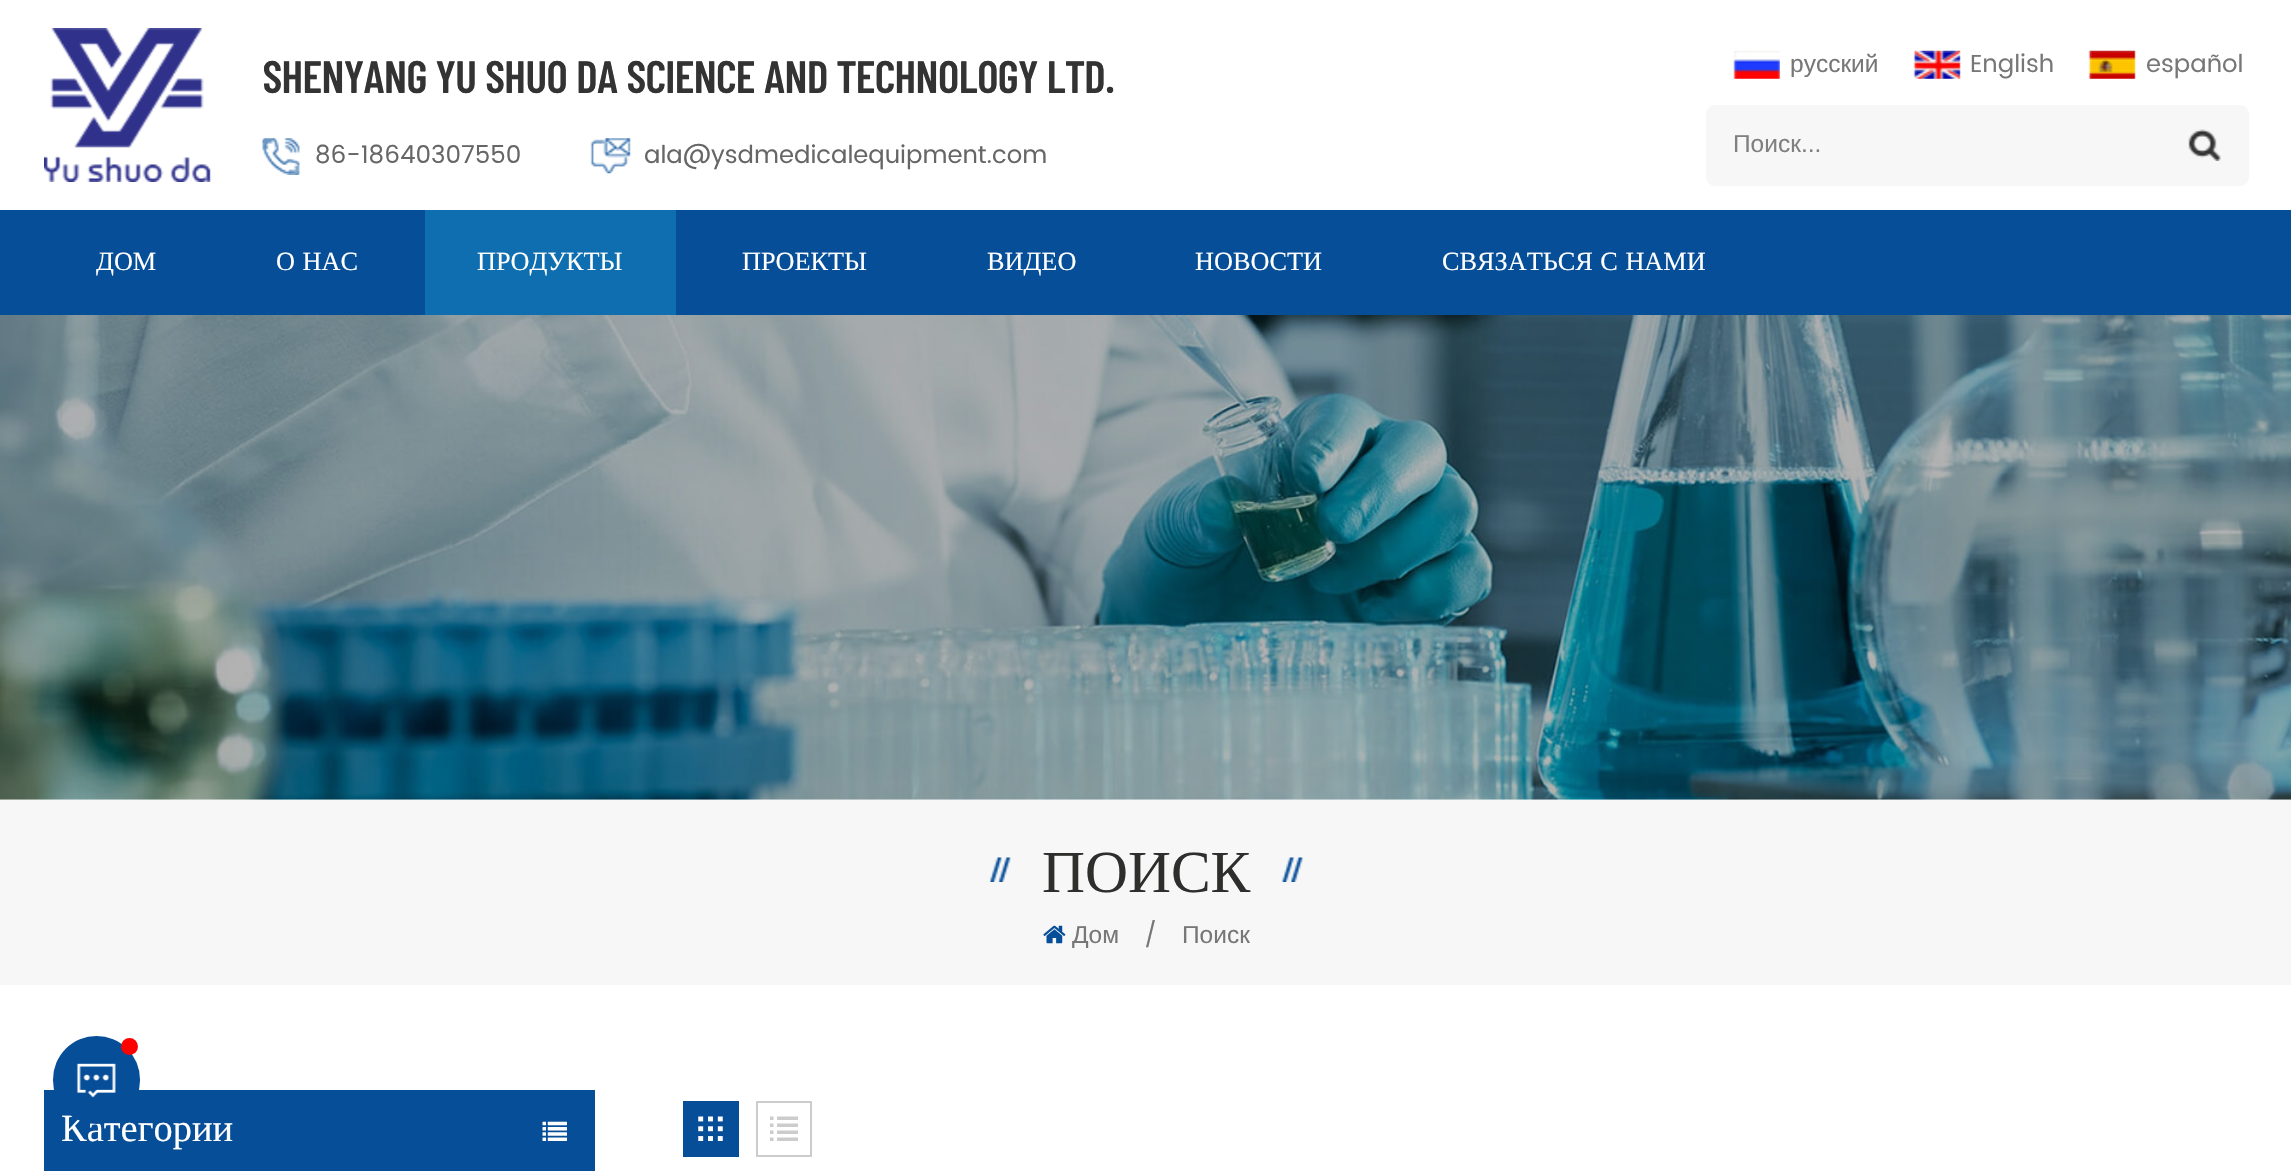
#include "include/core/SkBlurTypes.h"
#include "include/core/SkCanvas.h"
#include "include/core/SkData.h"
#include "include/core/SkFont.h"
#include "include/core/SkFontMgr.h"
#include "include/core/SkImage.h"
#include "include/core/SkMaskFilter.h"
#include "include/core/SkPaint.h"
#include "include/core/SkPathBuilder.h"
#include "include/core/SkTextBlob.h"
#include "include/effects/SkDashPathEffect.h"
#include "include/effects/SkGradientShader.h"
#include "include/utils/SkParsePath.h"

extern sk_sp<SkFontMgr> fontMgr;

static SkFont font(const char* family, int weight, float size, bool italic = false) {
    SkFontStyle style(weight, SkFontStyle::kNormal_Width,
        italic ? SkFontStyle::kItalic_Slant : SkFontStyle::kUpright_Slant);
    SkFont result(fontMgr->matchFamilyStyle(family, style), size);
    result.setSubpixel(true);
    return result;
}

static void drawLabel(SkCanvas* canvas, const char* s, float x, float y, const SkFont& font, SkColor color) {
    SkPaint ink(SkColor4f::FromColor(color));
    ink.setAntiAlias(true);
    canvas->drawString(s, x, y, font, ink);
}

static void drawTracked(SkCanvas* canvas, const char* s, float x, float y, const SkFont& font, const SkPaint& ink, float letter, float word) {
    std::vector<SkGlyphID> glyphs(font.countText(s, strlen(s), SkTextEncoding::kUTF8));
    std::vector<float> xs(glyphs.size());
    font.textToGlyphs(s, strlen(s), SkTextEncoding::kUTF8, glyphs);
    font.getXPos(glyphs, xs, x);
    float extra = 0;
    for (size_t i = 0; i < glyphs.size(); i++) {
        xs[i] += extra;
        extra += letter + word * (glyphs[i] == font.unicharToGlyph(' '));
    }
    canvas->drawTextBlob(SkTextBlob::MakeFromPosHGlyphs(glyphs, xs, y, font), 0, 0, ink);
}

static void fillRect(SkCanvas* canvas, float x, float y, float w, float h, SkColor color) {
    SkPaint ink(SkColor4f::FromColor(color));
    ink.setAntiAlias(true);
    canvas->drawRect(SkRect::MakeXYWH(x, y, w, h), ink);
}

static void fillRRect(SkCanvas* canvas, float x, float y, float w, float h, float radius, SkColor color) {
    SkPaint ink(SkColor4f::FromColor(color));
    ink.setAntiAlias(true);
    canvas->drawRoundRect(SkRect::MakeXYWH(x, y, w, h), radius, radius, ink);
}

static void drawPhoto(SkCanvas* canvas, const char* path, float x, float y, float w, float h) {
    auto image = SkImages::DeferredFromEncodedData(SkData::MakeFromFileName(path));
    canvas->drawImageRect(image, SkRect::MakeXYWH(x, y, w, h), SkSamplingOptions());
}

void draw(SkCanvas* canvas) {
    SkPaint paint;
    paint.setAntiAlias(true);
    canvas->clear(0xFFFFFFFF);
    drawPhoto(canvas, "assets/img1.png", 44, 28, 167, 154);
    SkFont font1 = font("Barlow Condensed", 600, 45.5f);
    drawLabel(canvas, "SHENYANG YU SHUO DA SCIENCE AND TECHNOLOGY LTD.", 263, 93, font1, 0xFF333333);
    drawPhoto(canvas, "assets/img2.png", 261, 138, 39, 37);
    SkFont font2 = font("Poppins", 400, 24.5f);
    drawLabel(canvas, "86-18640307550", 315, 163, font2, 0xFF666666);
    drawPhoto(canvas, "assets/img3.png", 590, 138, 41, 36);
    drawLabel(canvas, "ala@ysdmedicalequipment.com", 644, 163, font2, 0xFF666666);
    drawPhoto(canvas, "assets/img4.png", 1733, 50, 47, 29);
    SkFont font3 = font("Liberation Sans", 400, 24.5f);
    drawLabel(canvas, "русский", 1790, 72, font3, 0xFF777777);
    drawPhoto(canvas, "assets/img5.png", 1913, 50, 48, 29);
    drawLabel(canvas, "English", 1970, 72, font2, 0xFF777777);
    drawPhoto(canvas, "assets/img6.png", 2088, 50, 48, 29);
    drawLabel(canvas, "español", 2146, 72, font2, 0xFF777777);
    fillRRect(canvas, 1706, 105, 543, 81, 9, 0xFFF7F7F7);
    drawLabel(canvas, "Поиск...", 1733, 152, font3, 0xFF808080);
    drawPhoto(canvas, "assets/img7.png", 2188, 129, 33, 32);
    fillRect(canvas, 0, 210, 2291, 105, 0xFF064E98);
    SkFont font4 = font("Liberation Serif", 400, 26.25f);
    drawLabel(canvas, "ДОМ", 96, 270, font4, 0xFFFFFFFF);
    paint.setColor(0xFFFFFFFF);
    drawTracked(canvas, "О НАС", 276, 270, font4, paint, 0, 1);
    fillRect(canvas, 425, 210, 251, 105, 0xFF0E6EAF);
    drawLabel(canvas, "ПРОДУКТЫ", 477, 270, font4, 0xFFFFFFFF);
    drawLabel(canvas, "ПРОЕКТЫ", 742, 270, font4, 0xFFFFFFFF);
    drawLabel(canvas, "ВИДЕО", 987, 270, font4, 0xFFFFFFFF);
    drawLabel(canvas, "НОВОСТИ", 1195, 270, font4, 0xFFFFFFFF);
    drawTracked(canvas, "СВЯЗАТЬСЯ С НАМИ", 1442, 270, font4, paint, 0, 1);
    drawPhoto(canvas, "assets/img8.png", 0, 315, 2291, 485);
    fillRect(canvas, 0, 800, 2291, 185, 0xFFF7F7F7);
    drawPhoto(canvas, "assets/img9.png", 989, 857, 315, 25);
    SkFont font5 = font("Liberation Serif", 400, 59.5f);
    drawLabel(canvas, "ПОИСК", 1042, 892, font5, 0xFF2E2E2D);
    drawPhoto(canvas, "assets/img10.png", 1043, 925, 23, 19);
    drawLabel(canvas, "Дом", 1072, 943, font3, 0xFF777777);
    drawLabel(canvas, "/", 1144, 943, font2, 0xFF777777);
    drawLabel(canvas, "Поиск", 1182, 943, font3, 0xFF777777);
    fillRect(canvas, 44, 1090, 551, 81, 0xFF064E98);
    SkFont font6 = font("Liberation Serif", 400, 38.5f);
    drawLabel(canvas, "Категории", 61, 1141, font6, 0xFFFFFFFF);
    fillRRect(canvas, 53, 1036, 87, 88, 43.5f, 0xFF064E98);
    drawPhoto(canvas, "assets/img11.png", 76, 1063, 40, 35);
    paint.setColor(0xFFFF0000);
    canvas->drawCircle(129.5f, 1046.5f, 8.5f, paint);
    drawPhoto(canvas, "assets/img12.png", 542, 1121, 25, 20);
    fillRect(canvas, 44, 1174, 551, 1, 0xFFF9F9F9);
    fillRect(canvas, 683, 1101, 56, 56, 0xFF064E98);
    drawPhoto(canvas, "assets/img13.png", 698, 1116, 25, 25);
    paint.setStroke(true);
    paint.setStrokeWidth(2);
    paint.setColor(0xFFCCCCCC);
    canvas->drawRect(SkRect::MakeXYWH(757, 1102, 54, 54), paint);
    drawPhoto(canvas, "assets/img14.png", 770, 1116, 28, 25);
}
